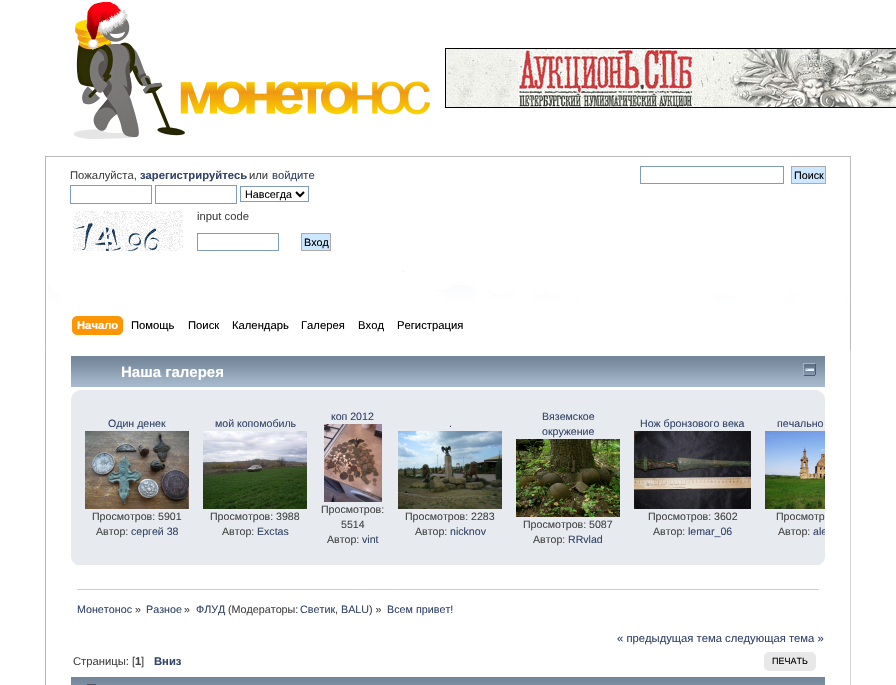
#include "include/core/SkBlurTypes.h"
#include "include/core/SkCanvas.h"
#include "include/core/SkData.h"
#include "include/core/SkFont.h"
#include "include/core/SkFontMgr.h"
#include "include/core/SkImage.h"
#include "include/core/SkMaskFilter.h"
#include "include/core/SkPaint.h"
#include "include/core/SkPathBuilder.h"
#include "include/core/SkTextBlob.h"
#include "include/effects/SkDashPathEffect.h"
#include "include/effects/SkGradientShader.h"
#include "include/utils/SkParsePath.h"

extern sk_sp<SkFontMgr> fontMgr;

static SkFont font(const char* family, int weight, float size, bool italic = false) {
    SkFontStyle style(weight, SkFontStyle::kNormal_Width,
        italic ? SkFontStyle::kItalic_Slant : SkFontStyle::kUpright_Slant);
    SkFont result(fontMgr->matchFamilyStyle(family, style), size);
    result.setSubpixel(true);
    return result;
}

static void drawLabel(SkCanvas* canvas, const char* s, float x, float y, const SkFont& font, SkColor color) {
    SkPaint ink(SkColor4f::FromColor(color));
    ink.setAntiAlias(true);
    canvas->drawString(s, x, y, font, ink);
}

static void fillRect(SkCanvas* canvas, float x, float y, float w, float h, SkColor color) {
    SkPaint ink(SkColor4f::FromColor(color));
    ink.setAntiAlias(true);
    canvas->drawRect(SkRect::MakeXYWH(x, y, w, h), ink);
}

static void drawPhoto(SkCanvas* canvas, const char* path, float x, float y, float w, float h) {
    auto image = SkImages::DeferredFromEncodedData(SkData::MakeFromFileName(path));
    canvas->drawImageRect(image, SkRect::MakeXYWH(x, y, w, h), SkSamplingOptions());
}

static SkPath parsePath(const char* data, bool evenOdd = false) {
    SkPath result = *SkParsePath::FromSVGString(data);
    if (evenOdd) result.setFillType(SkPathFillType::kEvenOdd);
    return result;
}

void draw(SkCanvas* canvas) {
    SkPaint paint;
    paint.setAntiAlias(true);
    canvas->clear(0xFFFFFFFF);
    drawPhoto(canvas, "assets/img1.png", 70, 2, 366, 137);
    drawPhoto(canvas, "assets/img2.png", 445, 48, 451, 60);
    drawPhoto(canvas, "assets/img3.png", 45, 156, 806, 194);
    drawPhoto(canvas, "assets/img4.png", 402, 157, 449, 193);
    SkFont font1 = font("Liberation Sans", 400, 11.25f);
    drawLabel(canvas, "Пожалуйста,", 70, 179, font1, 0xFF444444);
    SkFont font2 = font("Liberation Sans", 700, 11.25f);
    drawLabel(canvas, "зарегистрируйтесь", 140, 179, font2, 0xFF334466);
    drawLabel(canvas, "или", 249, 179, font1, 0xFF444444);
    drawLabel(canvas, "войдите", 272, 179, font1, 0xFF334466);
    paint.setStroke(true);
    paint.setStrokeWidth(1);
    paint.setColor(0xFF7F9DB9);
    canvas->drawRect(SkRect::MakeXYWH(70.5f, 185.5f, 81, 18), paint);
    canvas->drawRect(SkRect::MakeXYWH(155.5f, 185.5f, 81, 18), paint);
    canvas->drawRect(SkRect::MakeXYWH(240.5f, 186.5f, 68, 15), paint);
    paint.setStrokeWidth(2);
    paint.setColor(0xFF000000);
    canvas->drawPath(parsePath("M296 192L300 196L304 192"), paint);
    SkFont font3 = font("Liberation Sans", 400, 10.75f);
    drawLabel(canvas, "Навсегда", 245, 198, font3, 0xFF000000);
    drawPhoto(canvas, "assets/img5.png", 73, 211, 110, 40);
    drawLabel(canvas, "input code", 197, 220, font1, 0xFF444444);
    paint.setStrokeWidth(1);
    paint.setColor(0xFF7F9DB9);
    canvas->drawRect(SkRect::MakeXYWH(197.5f, 233.5f, 81, 17), paint);
    paint.setStroke(false);
    paint.setColor(0xFFCDE7FF);
    canvas->drawRect(SkRect::MakeXYWH(301.5f, 233.5f, 29, 17), paint);
    paint.setStroke(true);
    paint.setColor(0xFFAAAAAA);
    canvas->drawRect(SkRect::MakeXYWH(301.5f, 233.5f, 29, 17), paint);
    drawLabel(canvas, "Вход", 304, 246, font3, 0xFF000000);
    paint.setColor(0xFF7F9DB9);
    canvas->drawRect(SkRect::MakeXYWH(640.5f, 166.5f, 143, 17), paint);
    paint.setStroke(false);
    paint.setColor(0xFFCDE7FF);
    canvas->drawRect(SkRect::MakeXYWH(791.5f, 166.5f, 34, 17), paint);
    paint.setStroke(true);
    paint.setColor(0xFFAAAAAA);
    canvas->drawRect(SkRect::MakeXYWH(791.5f, 166.5f, 34, 17), paint);
    drawLabel(canvas, "Поиск", 794, 179, font3, 0xFF000000);
    drawPhoto(canvas, "assets/img6.png", 77, 316, 46, 19);
    drawPhoto(canvas, "assets/img7.png", 72, 316, 5, 19);
    drawLabel(canvas, "Начало", 77, 329, font2, 0xFFFFFFFF);
    drawLabel(canvas, "Помощь", 131, 329, font1, 0xFF000000);
    drawLabel(canvas, "Поиск", 188, 329, font1, 0xFF000000);
    drawLabel(canvas, "Календарь", 232, 329, font1, 0xFF000000);
    drawLabel(canvas, "Галерея", 301, 329, font1, 0xFF000000);
    drawLabel(canvas, "Вход", 358, 329, font1, 0xFF000000);
    drawLabel(canvas, "Регистрация", 397, 329, font1, 0xFF000000);
    fillRect(canvas, 45, 350, 1, 335, 0xFFB7B7B7);
    fillRect(canvas, 850, 350, 1, 335, 0xFFD3D3D3);
    drawPhoto(canvas, "assets/img8.png", 71, 356, 754, 31);
    SkFont font4 = font("Liberation Sans", 700, 15);
    drawLabel(canvas, "Наша галерея", 121, 377, font4, 0xFFFFFFFF);
    drawPhoto(canvas, "assets/img9.png", 803, 363, 13, 13);
    fillRect(canvas, 71, 390, 754, 175, 0xFFE7EAEF);
    drawPhoto(canvas, "assets/img10.png", 71, 390, 9, 9);
    drawPhoto(canvas, "assets/img11.png", 817, 390, 8, 8);
    SkFont font5 = font("Liberation Sans", 400, 10.6f);
    drawLabel(canvas, "Один денек", 108, 427, font5, 0xFF334466);
    drawPhoto(canvas, "assets/img12.png", 85, 431, 104, 78);
    drawLabel(canvas, "Просмотров: 5901", 92, 520, font5, 0xFF444444);
    drawLabel(canvas, "Автор:", 96, 535, font5, 0xFF444444);
    drawLabel(canvas, "сергей 38", 131, 535, font5, 0xFF334466);
    drawLabel(canvas, "мой копомобиль", 215, 427, font5, 0xFF334466);
    drawPhoto(canvas, "assets/img13.png", 203, 431, 104, 78);
    drawLabel(canvas, "Просмотров: 3988", 210, 520, font5, 0xFF444444);
    drawLabel(canvas, "Автор:", 222, 535, font5, 0xFF444444);
    drawLabel(canvas, "Exctas", 257, 535, font5, 0xFF334466);
    drawLabel(canvas, "коп 2012", 331, 420, font5, 0xFF334466);
    drawPhoto(canvas, "assets/img14.png", 324, 424, 58, 78);
    drawLabel(canvas, "Просмотров:", 321, 513, font5, 0xFF444444);
    drawLabel(canvas, "5514", 341, 528, font5, 0xFF444444);
    drawLabel(canvas, "Автор:", 327, 543, font5, 0xFF444444);
    drawLabel(canvas, "vint", 362, 543, font5, 0xFF334466);
    drawLabel(canvas, ".", 449, 427, font5, 0xFF334466);
    drawPhoto(canvas, "assets/img15.png", 398, 431, 104, 78);
    drawLabel(canvas, "Просмотров: 2283", 405, 520, font5, 0xFF444444);
    drawLabel(canvas, "Автор:", 415, 535, font5, 0xFF444444);
    drawLabel(canvas, "nicknov", 450, 535, font5, 0xFF334466);
    drawLabel(canvas, "Вяземское", 542, 420, font5, 0xFF334466);
    drawLabel(canvas, "окружение", 542, 435, font5, 0xFF334466);
    drawPhoto(canvas, "assets/img16.png", 516, 439, 104, 78);
    drawLabel(canvas, "Просмотров: 5087", 523, 528, font5, 0xFF444444);
    drawLabel(canvas, "Автор:", 533, 543, font5, 0xFF444444);
    drawLabel(canvas, "RRvlad", 568, 543, font5, 0xFF334466);
    drawLabel(canvas, "Нож бронзового века", 640, 427, font5, 0xFF334466);
    drawPhoto(canvas, "assets/img17.png", 634, 431, 117, 78);
    drawLabel(canvas, "Просмотров: 3602", 648, 520, font5, 0xFF444444);
    drawLabel(canvas, "Автор:", 653, 535, font5, 0xFF444444);
    drawLabel(canvas, "lemar_06", 688, 535, font5, 0xFF334466);
    drawLabel(canvas, "печально", 777, 427, font5, 0xFF334466);
    drawPhoto(canvas, "assets/img18.png", 765, 431, 60, 78);
    drawLabel(canvas, "Просмотр", 776, 520, font5, 0xFF444444);
    drawLabel(canvas, "Автор:", 778, 535, font5, 0xFF444444);
    canvas->save();
    canvas->clipRect(SkRect::MakeXYWH(71, 401, 754, 153));
    drawLabel(canvas, "ale", 813, 535, font5, 0xFF334466);
    canvas->restore();
    drawPhoto(canvas, "assets/img19.png", 71, 557, 6, 8);
    drawPhoto(canvas, "assets/img20.png", 820, 558, 5, 7);
    fillRect(canvas, 77, 589, 742, 1, 0xFFCCCCCC);
    drawLabel(canvas, "Монетонос", 77, 613, font3, 0xFF334466);
    drawLabel(canvas, "»", 135, 613, font3, 0xFF444444);
    drawLabel(canvas, "Разное", 146, 613, font3, 0xFF334466);
    drawLabel(canvas, "»", 184, 613, font3, 0xFF444444);
    drawLabel(canvas, "ФЛУД", 196, 613, font3, 0xFF334466);
    drawLabel(canvas, "(Модераторы:", 228, 613, font3, 0xFF444444);
    drawLabel(canvas, "Светик", 300, 613, font3, 0xFF334466);
    drawLabel(canvas, ",", 335, 613, font3, 0xFF444444);
    drawLabel(canvas, "BALU", 341, 613, font3, 0xFF334466);
    drawLabel(canvas, ") »", 369, 613, font3, 0xFF444444);
    drawLabel(canvas, "Всем привет!", 387, 613, font3, 0xFF334466);
    drawLabel(canvas, "« предыдущая тема следующая тема »", 617, 642, font1, 0xFF334466);
    drawLabel(canvas, "Страницы: [", 73, 665, font1, 0xFF444444);
    drawLabel(canvas, "1", 135, 665, font2, 0xFF444444);
    drawLabel(canvas, "]", 141, 665, font1, 0xFF444444);
    drawLabel(canvas, "Вниз", 154, 665, font2, 0xFF334466);
    fillRect(canvas, 768, 652, 44, 19, 0xFFE8E8E8);
    drawPhoto(canvas, "assets/img21.png", 764, 652, 4, 19);
    drawPhoto(canvas, "assets/img22.png", 812, 652, 4, 19);
    SkFont font6 = font("Liberation Sans", 400, 9);
    drawLabel(canvas, "ПЕЧАТЬ", 772, 664, font6, 0xFF000000);
    drawPhoto(canvas, "assets/img23.png", 71, 677, 754, 8);
    fillRect(canvas, 87, 684, 9, 1, 0xFF57555A);
}
